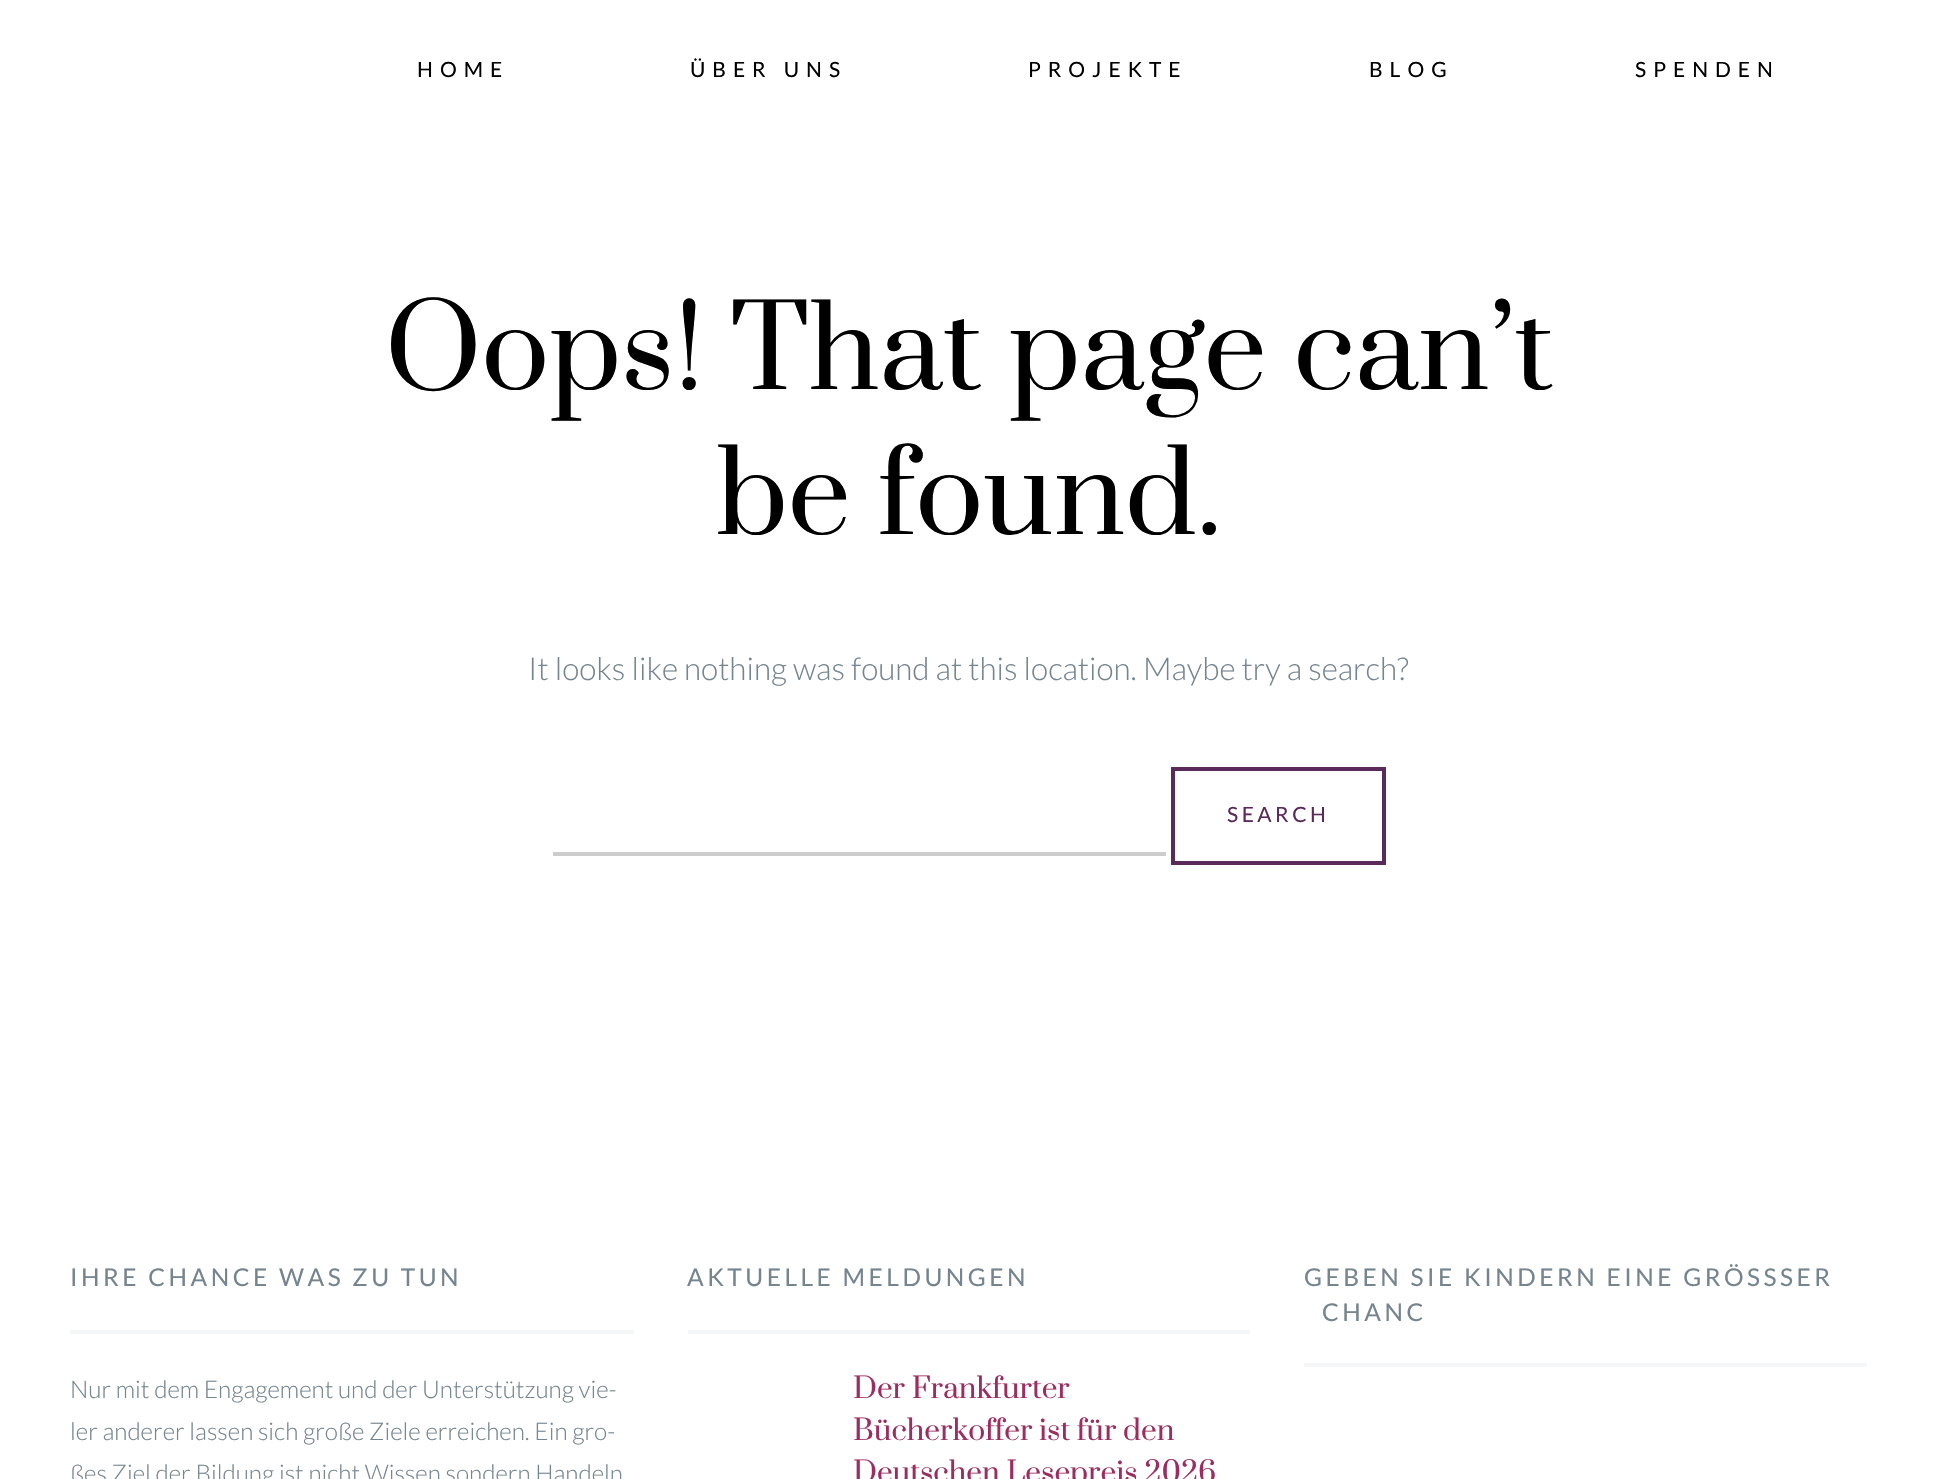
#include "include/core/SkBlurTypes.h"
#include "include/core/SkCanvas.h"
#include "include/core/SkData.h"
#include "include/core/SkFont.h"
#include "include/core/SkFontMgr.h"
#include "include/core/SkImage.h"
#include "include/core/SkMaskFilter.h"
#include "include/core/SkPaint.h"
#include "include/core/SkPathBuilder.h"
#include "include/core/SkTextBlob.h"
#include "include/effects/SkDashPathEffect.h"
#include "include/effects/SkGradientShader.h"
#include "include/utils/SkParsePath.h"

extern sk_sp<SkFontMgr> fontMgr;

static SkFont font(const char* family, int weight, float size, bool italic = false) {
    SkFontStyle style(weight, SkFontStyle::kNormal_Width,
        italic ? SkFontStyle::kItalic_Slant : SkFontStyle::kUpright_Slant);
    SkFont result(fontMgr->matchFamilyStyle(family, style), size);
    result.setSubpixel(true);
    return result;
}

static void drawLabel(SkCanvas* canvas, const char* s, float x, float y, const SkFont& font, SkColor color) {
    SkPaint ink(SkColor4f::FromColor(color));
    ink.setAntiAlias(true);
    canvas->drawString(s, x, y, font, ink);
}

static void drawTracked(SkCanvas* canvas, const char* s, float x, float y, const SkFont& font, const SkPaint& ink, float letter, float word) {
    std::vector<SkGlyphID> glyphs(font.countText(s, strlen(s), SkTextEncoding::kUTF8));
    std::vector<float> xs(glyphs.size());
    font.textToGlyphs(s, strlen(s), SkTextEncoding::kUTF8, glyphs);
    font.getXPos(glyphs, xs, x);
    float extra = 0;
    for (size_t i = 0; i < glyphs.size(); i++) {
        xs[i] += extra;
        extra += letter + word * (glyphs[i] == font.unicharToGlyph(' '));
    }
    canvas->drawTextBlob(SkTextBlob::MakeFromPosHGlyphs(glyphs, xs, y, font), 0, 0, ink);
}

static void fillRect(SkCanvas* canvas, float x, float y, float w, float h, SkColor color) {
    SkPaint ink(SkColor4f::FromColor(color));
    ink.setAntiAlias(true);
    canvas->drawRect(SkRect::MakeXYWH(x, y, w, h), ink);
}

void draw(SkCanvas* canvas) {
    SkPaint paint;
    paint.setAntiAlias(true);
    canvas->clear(0xFFFFFFFF);
    SkFont font1 = font("Lato", 400, 21);
    paint.setColor(0xFF000000);
    drawTracked(canvas, "HOME", 417, 77, font1, paint, 7, 0);
    drawTracked(canvas, "ÜBER UNS", 690, 77, font1, paint, 7, 0);
    drawTracked(canvas, "PROJEKTE", 1028, 77, font1, paint, 7, 0);
    drawTracked(canvas, "BLOG", 1369, 77, font1, paint, 7, 0);
    drawTracked(canvas, "SPENDEN", 1635, 77, font1, paint, 7, 0);
    SkFont font2 = font("Prata", 400, 112);
    drawLabel(canvas, "Oops! That page can’t", 385, 389, font2, 0xFF000000);
    drawLabel(canvas, "be found.", 716, 534, font2, 0xFF000000);
    SkFont font3 = font("Lato", 300, 31.5f);
    drawLabel(canvas, "It looks like nothing was found at this location. Maybe try a search?", 528, 680, font3, 0xFF75858F);
    paint.setStroke(true);
    paint.setStrokeWidth(4);
    paint.setColor(0xFF592A5A);
    canvas->drawRect(SkRect::MakeXYWH(1173, 769, 211, 94), paint);
    paint.setStroke(false);
    drawTracked(canvas, "SEARCH", 1227, 822, font1, paint, 3.5f, 0);
    fillRect(canvas, 553, 852, 613, 4, 0xFFCCCCCC);
    SkFont font4 = font("Lato", 400, 24.5f);
    paint.setColor(0xFF75858F);
    drawTracked(canvas, "IHRE CHANCE WAS ZU TUN", 70, 1286, font4, paint, 3.5f, 0);
    fillRect(canvas, 70, 1330, 564, 4, 0xFFF5F6F7);
    SkFont font5 = font("Lato", 300, 24.25f);
    drawLabel(canvas, "Nur mit dem Engagement und der Unterstützung vie-", 70, 1398, font5, 0xFF75858F);
    drawLabel(canvas, "ler anderer lassen sich große Ziele erreichen. Ein gro-", 70, 1440, font5, 0xFF75858F);
    drawLabel(canvas, "ßes Ziel der Bildung ist nicht Wissen sondern Handeln", 70, 1482, font5, 0xFF75858F);
    drawTracked(canvas, "AKTUELLE MELDUNGEN", 687, 1286, font4, paint, 3.5f, 0);
    fillRect(canvas, 688, 1330, 562, 4, 0xFFF5F6F7);
    SkFont font6 = font("Prata", 400, 28);
    drawLabel(canvas, "Der Frankfurter", 853, 1398, font6, 0xFF9C2D61);
    drawLabel(canvas, "Bücherkoffer ist für den", 853, 1440, font6, 0xFF9C2D61);
    drawLabel(canvas, "Deutschen Lesepreis 2026", 853, 1482, font6, 0xFF9C2D61);
    drawTracked(canvas, "GEBEN SIE KINDERN EINE GRÖSSSER", 1304, 1286, font4, paint, 3.5f, 0);
    drawTracked(canvas, "CHANC", 1322, 1321, font4, paint, 3.5f, 0);
    fillRect(canvas, 1304, 1363, 563, 4, 0xFFF5F6F7);
}
